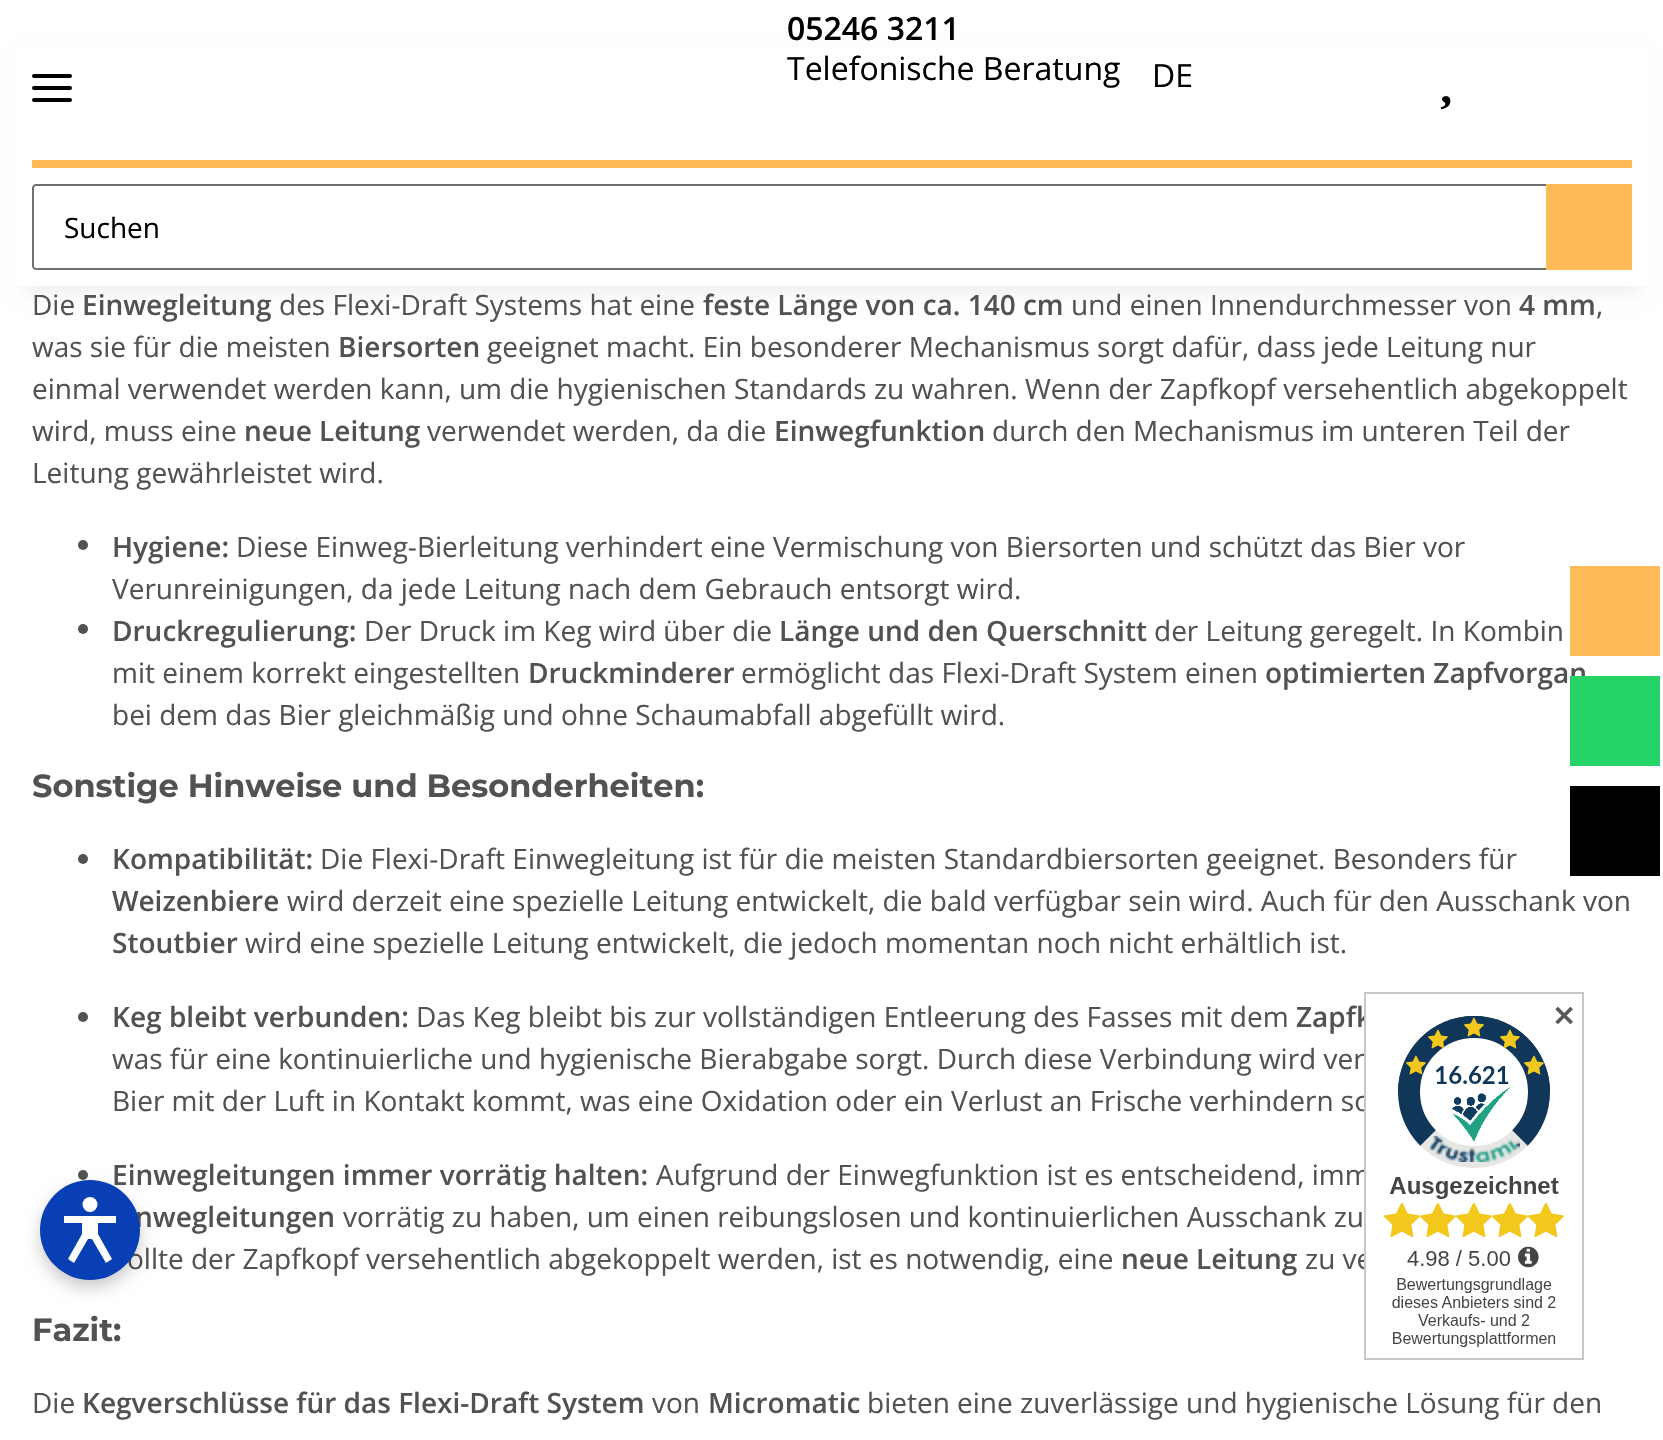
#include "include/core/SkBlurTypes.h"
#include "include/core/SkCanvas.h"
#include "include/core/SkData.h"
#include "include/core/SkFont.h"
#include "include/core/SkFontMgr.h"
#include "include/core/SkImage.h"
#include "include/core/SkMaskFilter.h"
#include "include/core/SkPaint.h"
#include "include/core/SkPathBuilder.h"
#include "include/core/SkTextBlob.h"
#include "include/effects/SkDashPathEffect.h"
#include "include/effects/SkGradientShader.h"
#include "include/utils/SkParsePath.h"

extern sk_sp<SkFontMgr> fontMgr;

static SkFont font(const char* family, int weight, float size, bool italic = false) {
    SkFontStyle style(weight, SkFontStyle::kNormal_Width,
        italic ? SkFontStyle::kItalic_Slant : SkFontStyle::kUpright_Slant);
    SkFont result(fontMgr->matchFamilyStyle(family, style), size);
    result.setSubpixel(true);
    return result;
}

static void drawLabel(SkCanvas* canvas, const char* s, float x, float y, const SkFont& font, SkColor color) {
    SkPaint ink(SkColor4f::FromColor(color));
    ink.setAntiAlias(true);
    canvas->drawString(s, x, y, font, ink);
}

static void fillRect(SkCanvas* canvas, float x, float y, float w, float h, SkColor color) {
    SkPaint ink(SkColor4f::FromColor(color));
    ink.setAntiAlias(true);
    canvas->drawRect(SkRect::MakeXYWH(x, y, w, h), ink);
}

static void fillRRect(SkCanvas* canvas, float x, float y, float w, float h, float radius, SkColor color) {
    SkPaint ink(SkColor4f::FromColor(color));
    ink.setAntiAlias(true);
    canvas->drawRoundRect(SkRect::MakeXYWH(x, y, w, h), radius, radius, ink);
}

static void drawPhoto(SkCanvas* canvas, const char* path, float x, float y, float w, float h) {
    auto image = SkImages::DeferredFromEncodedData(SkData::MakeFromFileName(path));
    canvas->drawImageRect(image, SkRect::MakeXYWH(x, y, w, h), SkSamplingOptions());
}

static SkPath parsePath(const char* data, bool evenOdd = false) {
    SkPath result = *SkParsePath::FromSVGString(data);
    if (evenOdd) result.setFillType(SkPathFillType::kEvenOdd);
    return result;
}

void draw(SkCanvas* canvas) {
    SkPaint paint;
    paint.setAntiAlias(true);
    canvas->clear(0xFFFFFFFF);
    paint.setColor(0x0F000000);
    paint.setMaskFilter(SkMaskFilter::MakeBlur(kNormal_SkBlurStyle, 9));
    canvas->drawRect(SkRect::MakeXYWH(24, 56, 1616, 238), paint);
    paint.setMaskFilter(nullptr);
    fillRect(canvas, 15, 47, 1634, 239, 0xFFFFFFFF);
    fillRRect(canvas, 32, 86, 40, 4, 2, 0xFF000000);
    fillRRect(canvas, 32, 74, 40, 4, 2, 0xFF000000);
    fillRRect(canvas, 32, 98, 40, 4, 2, 0xFF000000);
    SkFont font1 = font("Open Sans", 600, 32);
    drawLabel(canvas, "05246 3211", 787, 40, font1, 0xFF000000);
    SkFont font2 = font("Open Sans", 400, 32);
    drawLabel(canvas, "Telefonische Beratung", 787, 80, font2, 0xFF000000);
    drawLabel(canvas, "DE", 1152, 87, font2, 0xFF000000);
    drawPhoto(canvas, "assets/img1.png", 1440, 96, 11, 14);
    fillRect(canvas, 32, 160, 1600, 8, 0xFFFEBA57);
    paint.setStroke(true);
    paint.setStrokeWidth(2);
    paint.setColor(0xFF707070);
    canvas->drawPath(parsePath("M36 185H1547V269H36C34.5 269 33 267.5 33 266V188C33 186.5 34.5 185 36 185Z"), paint);
    SkFont font3 = font("Open Sans", 400, 28);
    drawLabel(canvas, "Suchen", 64, 238, font3, 0xFF000000);
    fillRect(canvas, 1546, 184, 86, 86, 0xFFFEBA57);
    drawLabel(canvas, "Die", 32, 315, font3, 0xFF525252);
    SkFont font4 = font("Open Sans", 600, 28);
    drawLabel(canvas, "Einwegleitung", 82, 315, font4, 0xFF525252);
    drawLabel(canvas, "des Flexi-Draft Systems hat eine", 279, 315, font3, 0xFF525252);
    drawLabel(canvas, "feste Länge von ca. 140 cm", 703, 315, font4, 0xFF525252);
    drawLabel(canvas, "und einen Innendurchmesser von", 1071, 315, font3, 0xFF525252);
    drawLabel(canvas, "4 mm", 1519, 315, font4, 0xFF525252);
    drawLabel(canvas, ",", 1596, 315, font3, 0xFF525252);
    drawLabel(canvas, "was sie für die meisten", 32, 357, font3, 0xFF525252);
    drawLabel(canvas, "Biersorten", 338, 357, font4, 0xFF525252);
    drawLabel(canvas, "geeignet macht. Ein besonderer Mechanismus sorgt dafür, dass jede Leitung nur", 487, 357, font3, 0xFF525252);
    drawLabel(canvas, "einmal verwendet werden kann, um die hygienischen Standards zu wahren. Wenn der Zapfkopf versehentlich abgekoppelt", 32, 399, font3, 0xFF525252);
    drawLabel(canvas, "wird, muss eine", 32, 441, font3, 0xFF525252);
    drawLabel(canvas, "neue Leitung", 244, 441, font4, 0xFF525252);
    drawLabel(canvas, "verwendet werden, da die", 427, 441, font3, 0xFF525252);
    drawLabel(canvas, "Einwegfunktion", 774, 441, font4, 0xFF525252);
    drawLabel(canvas, "durch den Mechanismus im unteren Teil der", 992, 441, font3, 0xFF525252);
    drawLabel(canvas, "Leitung gewährleistet wird.", 32, 483, font3, 0xFF525252);
    paint.setStroke(false);
    paint.setColor(0xFF525252);
    canvas->drawCircle(83, 545, 5, paint);
    drawLabel(canvas, "Hygiene:", 112, 557, font4, 0xFF525252);
    drawLabel(canvas, "Diese Einweg-Bierleitung verhindert eine Vermischung von Biersorten und schützt das Bier vor", 236, 557, font3, 0xFF525252);
    drawLabel(canvas, "Verunreinigungen, da jede Leitung nach dem Gebrauch entsorgt wird.", 112, 599, font3, 0xFF525252);
    canvas->drawCircle(83, 629, 5, paint);
    drawLabel(canvas, "Druckregulierung:", 112, 641, font4, 0xFF525252);
    drawLabel(canvas, "Der Druck im Keg wird über die", 364, 641, font3, 0xFF525252);
    drawLabel(canvas, "Länge und den Querschnitt", 779, 641, font4, 0xFF525252);
    drawLabel(canvas, "der Leitung geregelt. In Kombin", 1154, 641, font3, 0xFF525252);
    drawLabel(canvas, "mit einem korrekt eingestellten", 112, 683, font3, 0xFF525252);
    drawLabel(canvas, "Druckminderer", 528, 683, font4, 0xFF525252);
    drawLabel(canvas, "ermöglicht das Flexi-Draft System einen", 741, 683, font3, 0xFF525252);
    drawLabel(canvas, "optimierten Zapfvorgan", 1265, 683, font4, 0xFF525252);
    drawLabel(canvas, "bei dem das Bier gleichmäßig und ohne Schaumabfall abgefüllt wird.", 112, 725, font3, 0xFF525252);
    SkFont font5 = font("Montserrat", 700, 32);
    drawLabel(canvas, "Sonstige Hinweise und Besonderheiten:", 32, 797, font5, 0xFF525252);
    canvas->drawCircle(83, 859, 5, paint);
    drawLabel(canvas, "Kompatibilität:", 112, 869, font4, 0xFF525252);
    drawLabel(canvas, "Die Flexi-Draft Einwegleitung ist für die meisten Standardbiersorten geeignet. Besonders für", 320, 869, font3, 0xFF525252);
    drawLabel(canvas, "Weizenbiere", 112, 911, font4, 0xFF525252);
    drawLabel(canvas, "wird derzeit eine spezielle Leitung entwickelt, die bald verfügbar sein wird. Auch für den Ausschank von", 287, 911, font3, 0xFF525252);
    drawLabel(canvas, "Stoutbier", 112, 953, font4, 0xFF525252);
    drawLabel(canvas, "wird eine spezielle Leitung entwickelt, die jedoch momentan noch nicht erhältlich ist.", 245, 953, font3, 0xFF525252);
    canvas->drawCircle(83, 1017, 5, paint);
    drawLabel(canvas, "Keg bleibt verbunden:", 112, 1027, font4, 0xFF525252);
    drawLabel(canvas, "Das Keg bleibt bis zur vollständigen Entleerung des Fasses mit dem", 416, 1027, font3, 0xFF525252);
    drawLabel(canvas, "Zapfk", 1296, 1027, font4, 0xFF525252);
    drawLabel(canvas, "was für eine kontinuierliche und hygienische Bierabgabe sorgt. Durch diese Verbindung wird ver", 112, 1069, font3, 0xFF525252);
    drawLabel(canvas, "Bier mit der Luft in Kontakt kommt, was eine Oxidation oder ein Verlust an Frische verhindern so", 112, 1111, font3, 0xFF525252);
    canvas->drawCircle(83, 1175, 5, paint);
    drawLabel(canvas, "Einwegleitungen immer vorrätig halten:", 112, 1185, font4, 0xFF525252);
    drawLabel(canvas, "Aufgrund der Einwegfunktion ist es entscheidend, imm", 656, 1185, font3, 0xFF525252);
    drawLabel(canvas, "nwegleitungen", 135, 1227, font4, 0xFF525252);
    drawLabel(canvas, "vorrätig zu haben, um einen reibungslosen und kontinuierlichen Ausschank zu", 343, 1227, font3, 0xFF525252);
    drawLabel(canvas, "ollte der Zapfkopf versehentlich abgekoppelt werden, ist es notwendig, eine", 127, 1269, font3, 0xFF525252);
    drawLabel(canvas, "neue Leitung", 1121, 1269, font4, 0xFF525252);
    drawLabel(canvas, "zu ve", 1305, 1269, font3, 0xFF525252);
    drawLabel(canvas, "Fazit:", 32, 1341, font5, 0xFF525252);
    drawLabel(canvas, "Die", 32, 1413, font3, 0xFF525252);
    drawLabel(canvas, "Kegverschlüsse für das Flexi-Draft System", 82, 1413, font4, 0xFF525252);
    drawLabel(canvas, "von", 652, 1413, font3, 0xFF525252);
    drawLabel(canvas, "Micromatic", 708, 1413, font4, 0xFF525252);
    drawLabel(canvas, "bieten eine zuverlässige und hygienische Lösung für den", 867, 1413, font3, 0xFF525252);
    fillRect(canvas, 1570, 566, 90, 90, 0xFFFEBA57);
    fillRect(canvas, 1570, 676, 90, 90, 0xFF25D366);
    fillRect(canvas, 1570, 786, 90, 90, 0xFF000000);
    drawPhoto(canvas, "assets/img2.png", 1364, 992, 220, 368);
    SkFont font6 = font("DejaVu Sans", 700, 28);
    drawLabel(canvas, "✕", 1552, 1026, font6, 0xFF595959);
    paint.setColor(0x33000000);
    paint.setMaskFilter(SkMaskFilter::MakeBlur(kNormal_SkBlurStyle, 8));
    canvas->drawRoundRect(SkRect::MakeXYWH(40, 1188, 100, 100), 50, 50, paint);
    paint.setMaskFilter(nullptr);
    paint.setColor(0xFF093FB4);
    canvas->drawCircle(90, 1230, 50, paint);
    paint.setColor(0xFFFFFFFF);
    canvas->drawPath(parsePath("M116 1223V1216H64V1223H82V1234L68 1259L74 1263L88 1239H92L106 1263L112 1259L98 1234V1223Z"), paint);
    canvas->drawCircle(90, 1204.5f, 7.5f, paint);
}
